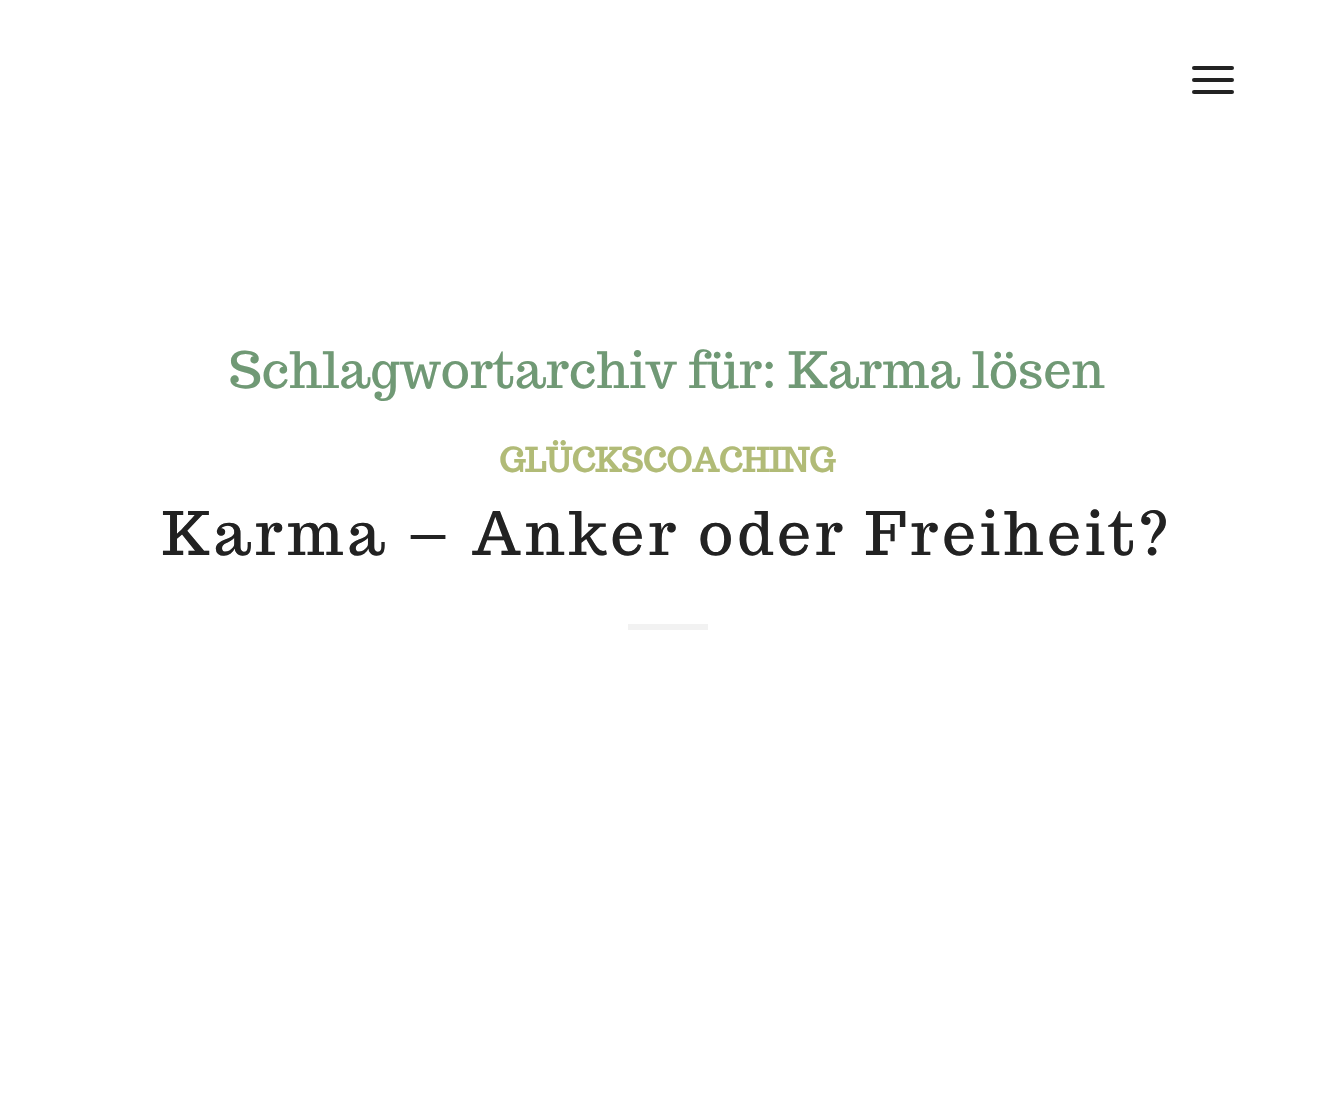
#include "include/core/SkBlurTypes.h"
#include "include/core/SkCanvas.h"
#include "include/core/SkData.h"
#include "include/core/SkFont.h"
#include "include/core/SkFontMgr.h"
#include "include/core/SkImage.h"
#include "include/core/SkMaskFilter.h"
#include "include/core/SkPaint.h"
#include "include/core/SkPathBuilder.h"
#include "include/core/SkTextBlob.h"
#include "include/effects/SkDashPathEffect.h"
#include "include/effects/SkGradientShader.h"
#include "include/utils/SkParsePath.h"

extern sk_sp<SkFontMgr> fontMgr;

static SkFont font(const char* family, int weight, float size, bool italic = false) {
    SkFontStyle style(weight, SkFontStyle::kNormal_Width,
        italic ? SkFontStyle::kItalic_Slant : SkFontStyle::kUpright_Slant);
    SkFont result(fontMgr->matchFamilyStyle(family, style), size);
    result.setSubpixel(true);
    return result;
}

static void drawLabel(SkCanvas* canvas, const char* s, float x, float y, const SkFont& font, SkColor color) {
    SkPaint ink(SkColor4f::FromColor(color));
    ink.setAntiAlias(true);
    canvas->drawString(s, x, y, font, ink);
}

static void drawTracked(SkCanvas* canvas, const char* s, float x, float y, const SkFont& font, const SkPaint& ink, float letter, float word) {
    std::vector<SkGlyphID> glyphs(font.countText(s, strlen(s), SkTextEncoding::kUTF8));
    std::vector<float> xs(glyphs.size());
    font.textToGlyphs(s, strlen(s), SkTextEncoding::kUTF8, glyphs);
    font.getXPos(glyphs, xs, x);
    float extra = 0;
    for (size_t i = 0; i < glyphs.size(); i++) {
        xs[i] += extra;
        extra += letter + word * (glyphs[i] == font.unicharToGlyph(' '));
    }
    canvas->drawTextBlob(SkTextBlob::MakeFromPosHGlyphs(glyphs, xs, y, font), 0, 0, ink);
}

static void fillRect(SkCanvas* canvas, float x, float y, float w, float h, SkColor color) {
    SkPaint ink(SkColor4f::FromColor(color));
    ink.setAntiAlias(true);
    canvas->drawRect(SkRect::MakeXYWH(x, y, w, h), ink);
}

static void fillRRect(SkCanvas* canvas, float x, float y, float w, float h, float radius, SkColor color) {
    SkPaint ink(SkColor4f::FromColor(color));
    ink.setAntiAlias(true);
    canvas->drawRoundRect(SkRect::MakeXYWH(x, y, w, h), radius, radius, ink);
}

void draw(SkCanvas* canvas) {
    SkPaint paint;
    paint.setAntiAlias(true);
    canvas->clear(0xFFFFFFFF);
    fillRRect(canvas, 1192, 78, 42, 4, 2, 0xFF222222);
    fillRRect(canvas, 1192, 66, 42, 4, 2, 0xFF222222);
    fillRRect(canvas, 1192, 90, 42, 4, 2, 0xFF222222);
    SkFont font1 = font("Trocchi", 400, 50);
    drawLabel(canvas, "Schlagwortarchiv für: Karma lösen", 229, 388, font1, 0xFF709975);
    SkFont font2 = font("Trocchi", 700, 33.1f);
    drawLabel(canvas, "GLÜCKSCOACHING", 499, 472, font2, 0xFFB1BB77);
    SkFont font3 = font("Trocchi", 400, 60);
    paint.setColor(0xFF222222);
    drawTracked(canvas, "Karma – Anker oder Freiheit?", 162, 555, font3, paint, 4, 0);
    fillRect(canvas, 628, 624, 80, 6, 0xFFF2F2F2);
}
